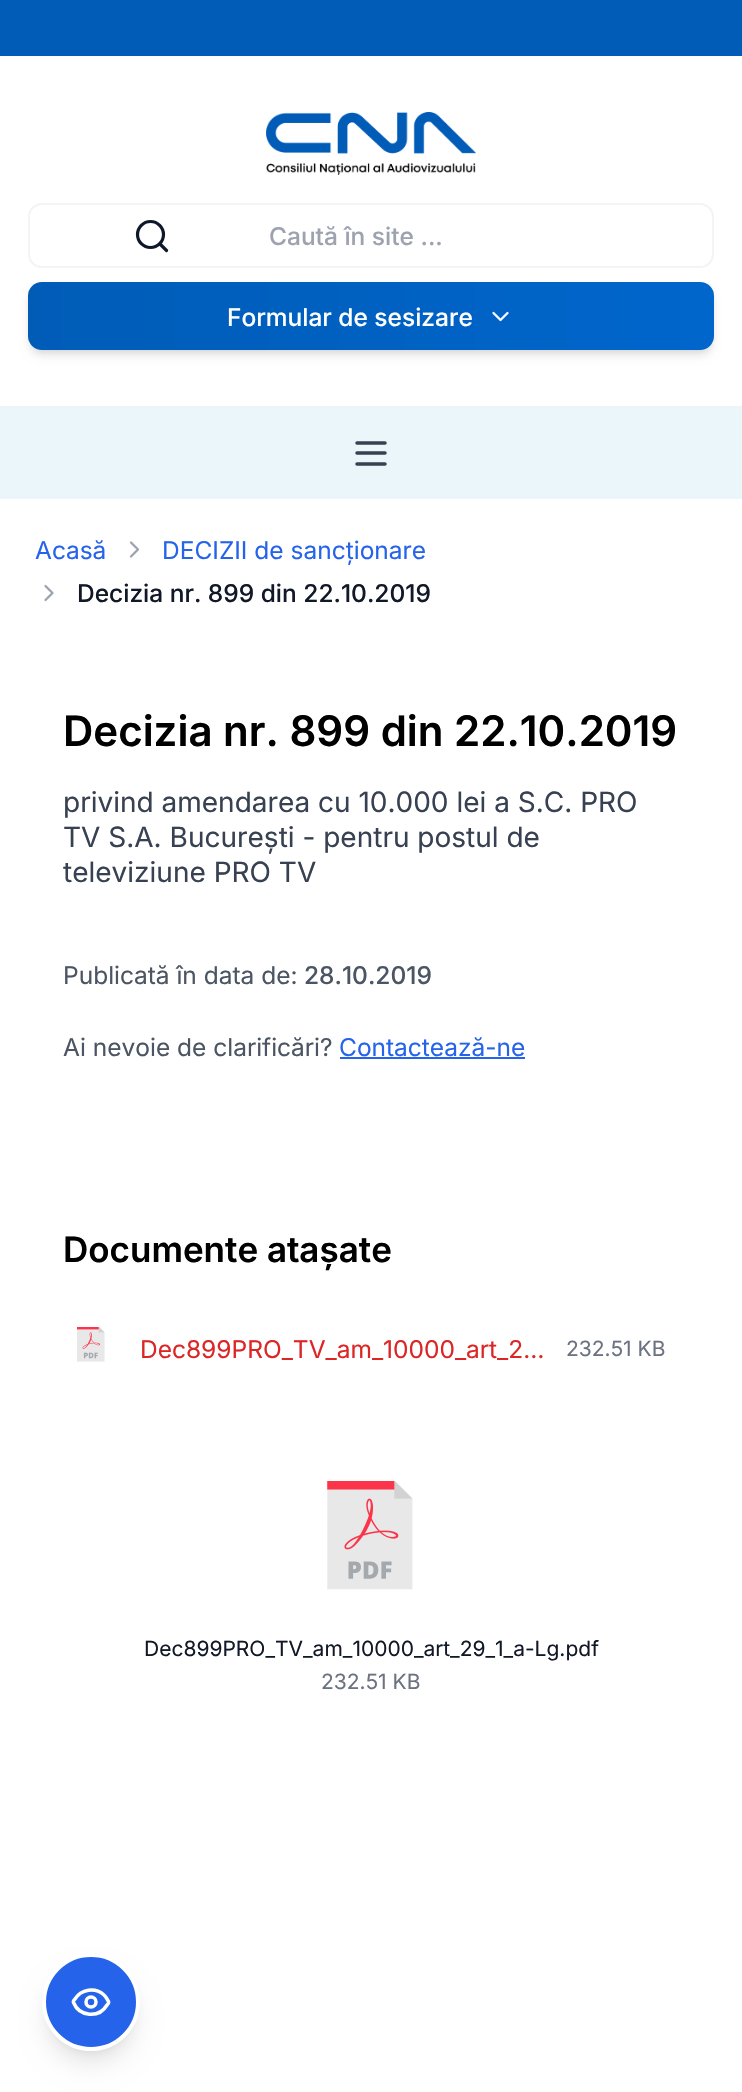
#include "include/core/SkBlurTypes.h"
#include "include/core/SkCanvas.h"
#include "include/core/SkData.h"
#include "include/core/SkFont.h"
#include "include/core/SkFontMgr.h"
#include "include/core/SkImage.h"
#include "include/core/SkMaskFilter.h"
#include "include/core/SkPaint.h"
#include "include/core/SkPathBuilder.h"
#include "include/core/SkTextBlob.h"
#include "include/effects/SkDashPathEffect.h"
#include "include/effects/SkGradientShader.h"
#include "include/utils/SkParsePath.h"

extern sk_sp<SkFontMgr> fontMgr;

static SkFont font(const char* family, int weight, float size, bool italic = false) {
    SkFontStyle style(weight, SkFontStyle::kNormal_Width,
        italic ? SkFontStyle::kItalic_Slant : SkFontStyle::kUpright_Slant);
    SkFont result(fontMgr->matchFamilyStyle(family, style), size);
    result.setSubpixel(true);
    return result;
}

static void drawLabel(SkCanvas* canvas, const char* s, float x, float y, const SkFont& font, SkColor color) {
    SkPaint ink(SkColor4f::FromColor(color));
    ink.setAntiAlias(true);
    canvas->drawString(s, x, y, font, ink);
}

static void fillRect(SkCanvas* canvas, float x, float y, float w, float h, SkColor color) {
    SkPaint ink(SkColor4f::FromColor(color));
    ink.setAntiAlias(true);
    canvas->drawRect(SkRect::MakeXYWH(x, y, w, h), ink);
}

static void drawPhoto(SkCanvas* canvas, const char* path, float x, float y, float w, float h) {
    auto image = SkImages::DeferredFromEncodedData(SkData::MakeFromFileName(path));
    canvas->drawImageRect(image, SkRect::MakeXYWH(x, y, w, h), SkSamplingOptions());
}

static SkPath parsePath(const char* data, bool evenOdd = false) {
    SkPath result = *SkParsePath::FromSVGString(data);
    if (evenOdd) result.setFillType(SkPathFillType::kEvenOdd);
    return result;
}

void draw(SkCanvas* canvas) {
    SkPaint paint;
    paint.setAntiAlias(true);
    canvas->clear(0xFFFFFFFF);
    fillRect(canvas, 0, 0, 742, 56, 0xFF005CB7);
    drawPhoto(canvas, "assets/img1.png", 266, 112, 210, 63);
    paint.setStroke(true);
    paint.setStrokeWidth(2);
    paint.setColor(0xFFF3F4F6);
    canvas->drawRoundRect(SkRect::MakeXYWH(29, 204, 684, 63), 13, 13, paint);
    paint.setStrokeWidth(3.2f);
    paint.setColor(0xFF0F172A);
    canvas->drawCircle(150.5f, 234.5f, 13, paint);
    paint.setStrokeCap(SkPaint::kRound_Cap);
    paint.setStrokeJoin(SkPaint::kRound_Join);
    canvas->drawPath(parsePath("M166.5 250.5L160 244"), paint);
    SkFont font1 = font("Inter", 500, 24.5f);
    drawLabel(canvas, "Caută în site ...", 269, 245, font1, 0xFF9CA3AF);
    paint.setStroke(false);
    paint.setColor(0x1A000000);
    paint.setMaskFilter(SkMaskFilter::MakeBlur(kNormal_SkBlurStyle, 3.5f));
    canvas->drawRoundRect(SkRect::MakeXYWH(32, 289, 679, 61), 11, 11, paint);
    paint.setMaskFilter(nullptr);
    paint.setMaskFilter(SkMaskFilter::MakeBlur(kNormal_SkBlurStyle, 5));
    canvas->drawRoundRect(SkRect::MakeXYWH(30, 291, 682, 64), 12, 12, paint);
    paint.setMaskFilter(nullptr);
    {
        const SkColor colors[] = {0xFF005CB7, 0xFF0066CC};
        const float stops[] = {0, 1};
        const SkPoint ends[] = {{28, 316}, {714, 316}};
        paint.setShader(SkGradientShader::MakeLinear(ends, colors, stops, 2, SkTileMode::kClamp));
        paint.setAlpha(255);
    }
    canvas->drawRoundRect(SkRect::MakeXYWH(28, 282, 686, 68), 14, 14, paint);
    drawLabel(canvas, "Formular de sesizare", 227, 326, font1, 0xFFFFFFFF);
    paint.setStroke(true);
    paint.setStrokeWidth(2.3f);
    paint.setShader(nullptr);
    paint.setColor(0xFFFFFFFF);
    canvas->drawPath(parsePath("M493.5 313L500.5 320L507.5 313"), paint);
    fillRect(canvas, 0, 406, 742, 93, 0xFFEBF6FB);
    paint.setStrokeWidth(3.5f);
    paint.setColor(0xFF374151);
    canvas->drawPath(parsePath("M357 453H385M357 443H385M357 464H385"), paint);
    SkFont font2 = font("Inter", 400, 24.5f);
    drawLabel(canvas, "Acasă", 35, 559, font2, 0xFF2563EB);
    paint.setStrokeWidth(2.3f);
    paint.setColor(0xFF9CA3AF);
    canvas->drawPath(parsePath("M131 556.5L138 549.5L131 542.5"), paint);
    drawLabel(canvas, "DECIZII de sancționare", 162, 559, font2, 0xFF2563EB);
    canvas->drawPath(parsePath("M45.5 600L52.5 593L45.5 586"), paint);
    drawLabel(canvas, "Decizia nr. 899 din 22.10.2019", 77, 602, font1, 0xFF111827);
    SkFont font3 = font("Inter", 600, 42);
    drawLabel(canvas, "Decizia nr. 899 din 22.10.2019", 63, 746, font3, 0xFF000000);
    SkFont font4 = font("Inter", 400, 28);
    drawLabel(canvas, "privind amendarea cu 10.000 lei a S.C. PRO", 63, 812, font4, 0xFF374151);
    drawLabel(canvas, "TV S.A. București - pentru postul de", 63, 847, font4, 0xFF374151);
    drawLabel(canvas, "televiziune PRO TV", 63, 882, font4, 0xFF374151);
    drawLabel(canvas, "Publicată în data de:", 63, 984, font2, 0xFF4B5563);
    drawLabel(canvas, "28.10.2019", 304, 984, font1, 0xFF4B5563);
    drawLabel(canvas, "Ai nevoie de clarificări?", 63, 1056, font2, 0xFF4B5563);
    drawLabel(canvas, "Contactează-ne", 339, 1056, font2, 0xFF2563EB);
    fillRect(canvas, 340, 1057, 185, 2, 0xFF2563EB);
    SkFont font5 = font("Inter", 600, 35);
    drawLabel(canvas, "Documente atașate", 63, 1262, font5, 0xFF000000);
    drawPhoto(canvas, "assets/img2.png", 77, 1327, 28, 35);
    drawLabel(canvas, "Dec899PRO_TV_am_10000_art_2…", 140, 1358, font2, 0xFFDC2626);
    SkFont font6 = font("Inter", 400, 21);
    drawLabel(canvas, "232.51 KB", 566, 1356, font6, 0xFF6B7280);
    drawPhoto(canvas, "assets/img3.png", 327, 1481, 86, 109);
    drawLabel(canvas, "Dec899PRO_TV_am_10000_art_29_1_a-Lg.pdf", 144, 1656, font6, 0xFF111827);
    drawLabel(canvas, "232.51 KB", 321, 1689, font6, 0xFF6B7280);
    paint.setStroke(false);
    paint.setColor(0x1A000000);
    paint.setMaskFilter(SkMaskFilter::MakeBlur(kNormal_SkBlurStyle, 5));
    canvas->drawRoundRect(SkRect::MakeXYWH(49, 1967, 84, 84), 42, 42, paint);
    paint.setMaskFilter(nullptr);
    paint.setMaskFilter(SkMaskFilter::MakeBlur(kNormal_SkBlurStyle, 13));
    canvas->drawRoundRect(SkRect::MakeXYWH(47, 1976, 88, 87), 43.5f, 43.5f, paint);
    paint.setMaskFilter(nullptr);
    paint.setColor(0xFF2563EB);
    canvas->drawCircle(91, 2002, 47, paint);
    paint.setStroke(true);
    paint.setStrokeWidth(4);
    paint.setStrokeCap(SkPaint::kButt_Cap);
    paint.setStrokeJoin(SkPaint::kMiter_Join);
    paint.setColor(0xFFFFFFFF);
    canvas->drawCircle(91, 2002, 47, paint);
    paint.setStrokeWidth(3.5f);
    paint.setStrokeCap(SkPaint::kRound_Cap);
    paint.setStrokeJoin(SkPaint::kRound_Join);
    canvas->drawPath(parsePath("M73.5 2002.5C73 2001.5 74.5 1999.5 75 1999C81 1989 95 1987 103.5 1994.5C106 1996.5 107 1999 108.5 2001.5C109 2002.5 107.5 2004.5 107 2005C99 2018.5 79.5 2017 73.5 2002.5"), paint);
    paint.setStrokeCap(SkPaint::kButt_Cap);
    paint.setStrokeJoin(SkPaint::kMiter_Join);
    canvas->drawCircle(91, 2002, 5, paint);
}
